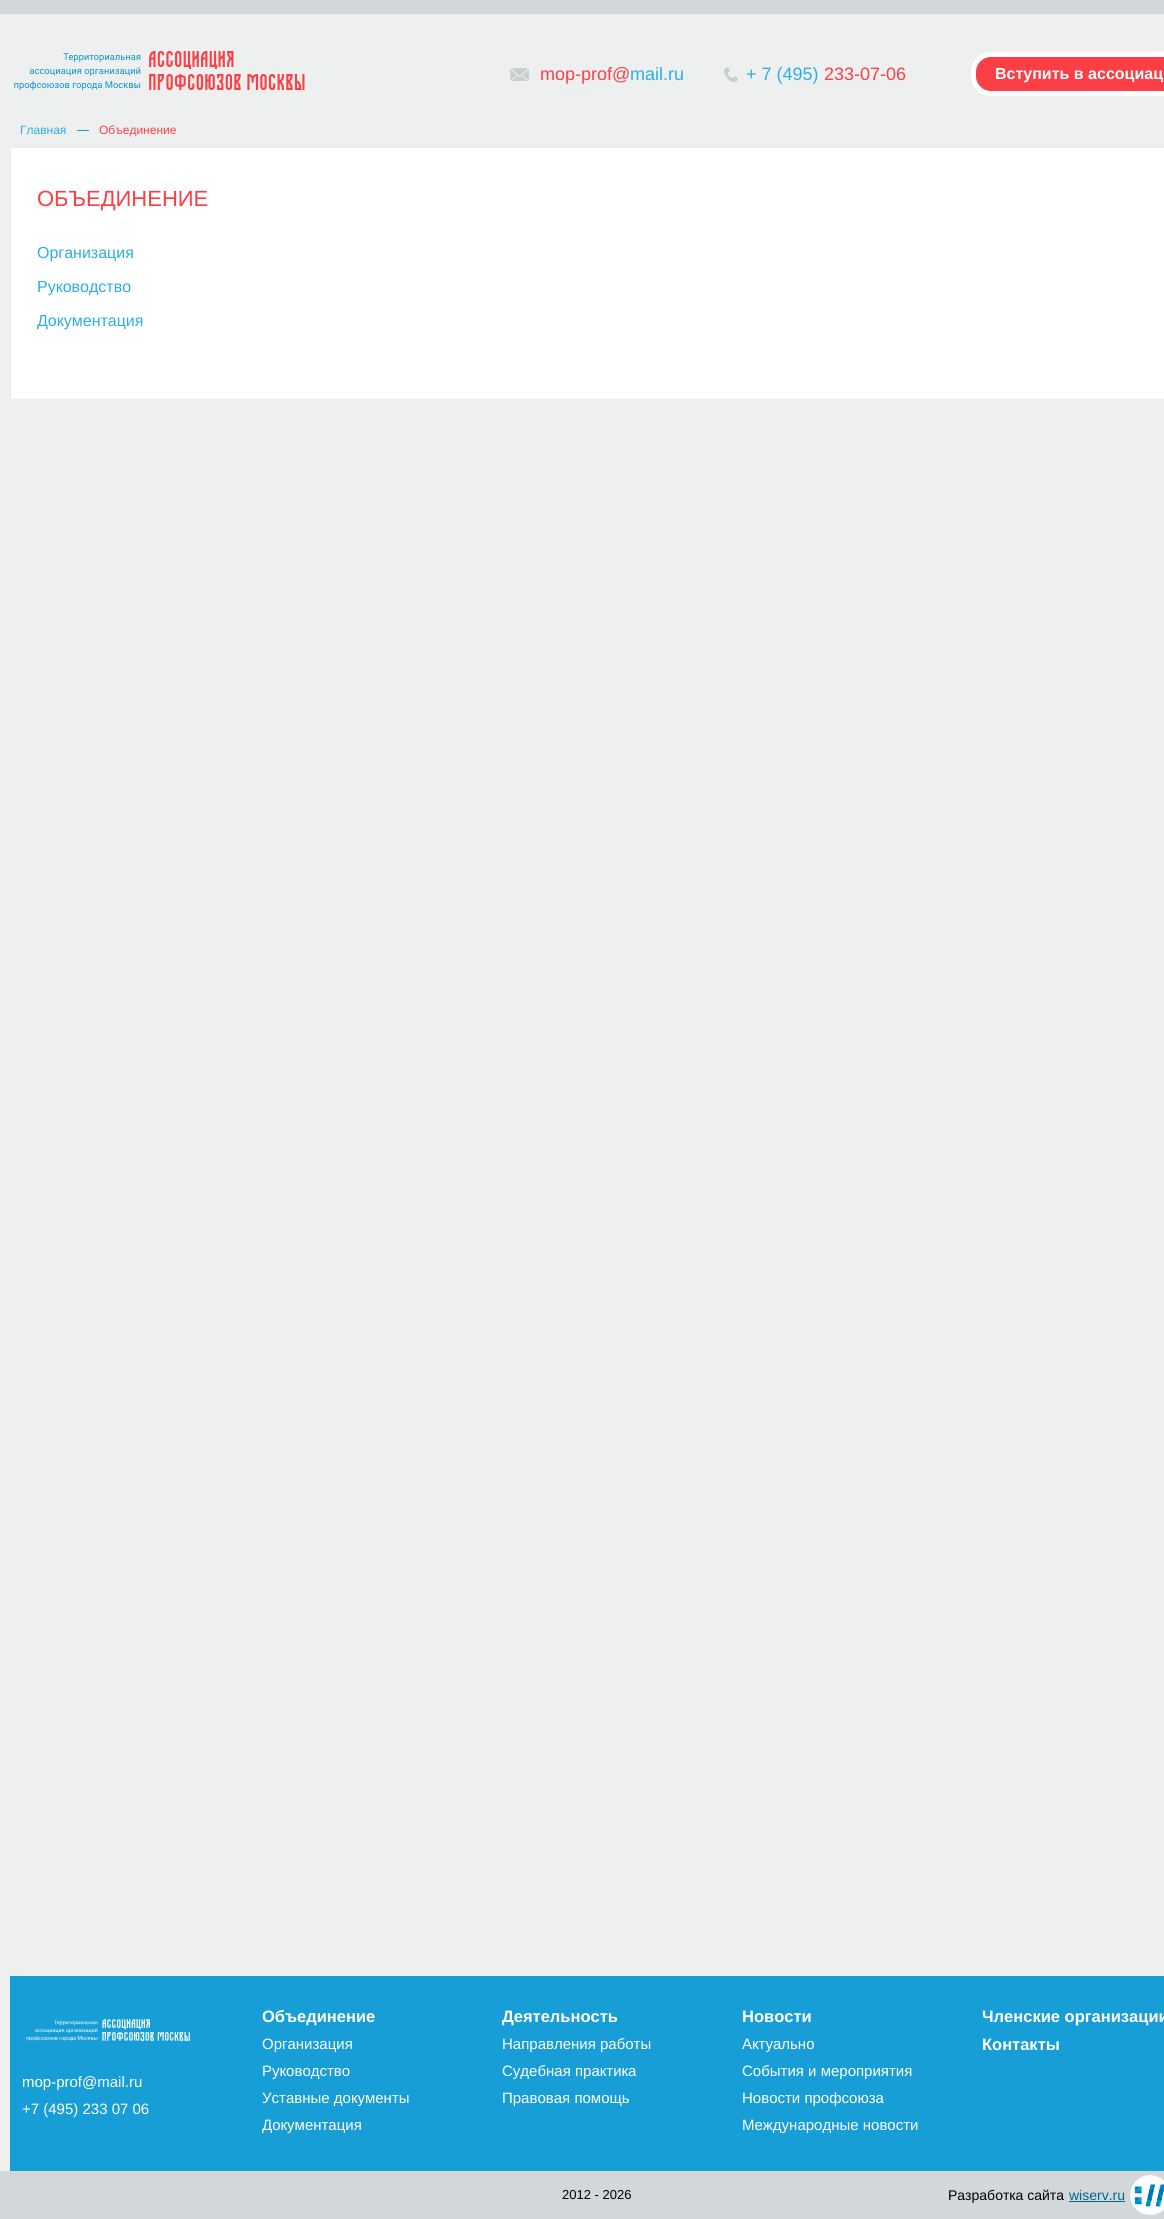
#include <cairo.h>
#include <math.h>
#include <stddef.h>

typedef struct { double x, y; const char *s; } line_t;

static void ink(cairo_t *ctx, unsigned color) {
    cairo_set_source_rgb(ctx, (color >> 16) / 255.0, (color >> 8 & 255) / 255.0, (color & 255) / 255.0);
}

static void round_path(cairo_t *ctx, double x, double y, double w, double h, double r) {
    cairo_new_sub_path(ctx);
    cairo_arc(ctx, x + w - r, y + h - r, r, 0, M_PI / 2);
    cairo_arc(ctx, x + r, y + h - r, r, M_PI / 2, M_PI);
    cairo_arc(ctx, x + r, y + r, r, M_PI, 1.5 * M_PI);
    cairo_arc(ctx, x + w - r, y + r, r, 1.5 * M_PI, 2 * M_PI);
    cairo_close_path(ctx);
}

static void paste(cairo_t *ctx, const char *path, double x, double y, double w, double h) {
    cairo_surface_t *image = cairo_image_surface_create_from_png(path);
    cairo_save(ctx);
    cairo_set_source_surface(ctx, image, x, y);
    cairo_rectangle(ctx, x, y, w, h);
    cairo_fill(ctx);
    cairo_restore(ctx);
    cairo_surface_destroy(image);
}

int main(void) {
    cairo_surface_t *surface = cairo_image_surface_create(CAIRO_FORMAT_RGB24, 1164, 2219);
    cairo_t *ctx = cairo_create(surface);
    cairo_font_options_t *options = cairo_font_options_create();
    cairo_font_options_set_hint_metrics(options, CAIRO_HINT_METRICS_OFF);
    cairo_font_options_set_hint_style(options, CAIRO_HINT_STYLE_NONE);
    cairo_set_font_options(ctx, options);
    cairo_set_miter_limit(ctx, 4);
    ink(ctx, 0xEEF0F0);
    cairo_paint(ctx);
    ink(ctx, 0xD2D7D9);
    cairo_rectangle(ctx, 0, 0, 1164, 14);
    cairo_fill(ctx);
    paste(ctx, "media/1.png", 14, 51, 291, 39);
    paste(ctx, "media/2.png", 510, 68, 19, 13);
    cairo_select_font_face(ctx, "Liberation Sans", CAIRO_FONT_SLANT_NORMAL, CAIRO_FONT_WEIGHT_NORMAL);
    cairo_set_font_size(ctx, 18);
    ink(ctx, 0xFC3E45);
    cairo_move_to(ctx, 540, 80);
    cairo_show_text(ctx, "mop-prof@");
    ink(ctx, 0x2CAEE4);
    cairo_move_to(ctx, 630, 80);
    cairo_show_text(ctx, "mail.ru");
    paste(ctx, "media/3.png", 724, 67, 14, 15);
    cairo_move_to(ctx, 746, 80);
    cairo_show_text(ctx, "+ 7 (495)");
    ink(ctx, 0xFC3E45);
    cairo_move_to(ctx, 824, 80);
    cairo_show_text(ctx, "233-07-06");
    round_path(ctx, 973.5, 54.5, 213, 39, 17.5);
    cairo_fill_preserve(ctx);
    ink(ctx, 0xFFFFFF);
    cairo_set_line_width(ctx, 5);
    cairo_stroke(ctx);
    cairo_select_font_face(ctx, "Liberation Sans", CAIRO_FONT_SLANT_NORMAL, CAIRO_FONT_WEIGHT_BOLD);
    cairo_set_font_size(ctx, 16);
    cairo_move_to(ctx, 995, 79);
    cairo_show_text(ctx, "Вступить в ассоциац");
    cairo_select_font_face(ctx, "Liberation Sans", CAIRO_FONT_SLANT_NORMAL, CAIRO_FONT_WEIGHT_NORMAL);
    cairo_set_font_size(ctx, 12);
    ink(ctx, 0x2CAEE4);
    cairo_move_to(ctx, 20, 134);
    cairo_show_text(ctx, "Главная");
    ink(ctx, 0x179ED6);
    cairo_rectangle(ctx, 77, 130, 12, 1);
    cairo_fill(ctx);
    ink(ctx, 0xFC3E45);
    cairo_move_to(ctx, 99, 134);
    cairo_show_text(ctx, "Объединение");
    ink(ctx, 0xFFFFFF);
    cairo_rectangle(ctx, 10.5, 147.5, 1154, 252);
    cairo_fill_preserve(ctx);
    ink(ctx, 0xECECEC);
    cairo_set_line_width(ctx, 1);
    cairo_stroke(ctx);
    cairo_set_font_size(ctx, 22);
    ink(ctx, 0xFC3E45);
    cairo_move_to(ctx, 37, 206);
    cairo_show_text(ctx, "ОБЪЕДИНЕНИЕ");
    cairo_set_font_size(ctx, 16);
    ink(ctx, 0x2CAEE4);
    {
        static const line_t items[] = {
            {37, 258, "Организация"},
            {37, 292, "Руководство"},
            {37, 326, "Документация"},
        };
        for (size_t i = 0; i < sizeof items / sizeof *items; i++) {
            cairo_move_to(ctx, items[i].x, items[i].y);
            cairo_show_text(ctx, items[i].s);
        }
    }
    ink(ctx, 0x179ED6);
    cairo_rectangle(ctx, 10, 1976, 1154, 195);
    cairo_fill(ctx);
    cairo_select_font_face(ctx, "Liberation Sans", CAIRO_FONT_SLANT_NORMAL, CAIRO_FONT_WEIGHT_BOLD);
    cairo_set_font_size(ctx, 16.5);
    ink(ctx, 0xFFFFFF);
    cairo_move_to(ctx, 262, 2022);
    cairo_show_text(ctx, "Объединение");
    cairo_select_font_face(ctx, "Liberation Sans", CAIRO_FONT_SLANT_NORMAL, CAIRO_FONT_WEIGHT_NORMAL);
    cairo_set_font_size(ctx, 15);
    {
        static const line_t items[] = {
            {262, 2049, "Организация"},
            {262, 2076, "Руководство"},
            {262, 2103, "Уставные документы"},
            {262, 2130, "Документация"},
        };
        for (size_t i = 0; i < sizeof items / sizeof *items; i++) {
            cairo_move_to(ctx, items[i].x, items[i].y);
            cairo_show_text(ctx, items[i].s);
        }
    }
    cairo_select_font_face(ctx, "Liberation Sans", CAIRO_FONT_SLANT_NORMAL, CAIRO_FONT_WEIGHT_BOLD);
    cairo_set_font_size(ctx, 16.5);
    cairo_move_to(ctx, 502, 2022);
    cairo_show_text(ctx, "Деятельность");
    cairo_select_font_face(ctx, "Liberation Sans", CAIRO_FONT_SLANT_NORMAL, CAIRO_FONT_WEIGHT_NORMAL);
    cairo_set_font_size(ctx, 15);
    {
        static const line_t items[] = {
            {502, 2049, "Направления работы"},
            {502, 2076, "Судебная практика"},
            {502, 2103, "Правовая помощь"},
        };
        for (size_t i = 0; i < sizeof items / sizeof *items; i++) {
            cairo_move_to(ctx, items[i].x, items[i].y);
            cairo_show_text(ctx, items[i].s);
        }
    }
    cairo_select_font_face(ctx, "Liberation Sans", CAIRO_FONT_SLANT_NORMAL, CAIRO_FONT_WEIGHT_BOLD);
    cairo_set_font_size(ctx, 16.5);
    cairo_move_to(ctx, 742, 2022);
    cairo_show_text(ctx, "Новости");
    cairo_select_font_face(ctx, "Liberation Sans", CAIRO_FONT_SLANT_NORMAL, CAIRO_FONT_WEIGHT_NORMAL);
    cairo_set_font_size(ctx, 15);
    {
        static const line_t items[] = {
            {742, 2049, "Актуально"},
            {742, 2076, "События и мероприятия"},
            {742, 2103, "Новости профсоюза"},
            {742, 2130, "Международные новости"},
        };
        for (size_t i = 0; i < sizeof items / sizeof *items; i++) {
            cairo_move_to(ctx, items[i].x, items[i].y);
            cairo_show_text(ctx, items[i].s);
        }
    }
    cairo_select_font_face(ctx, "Liberation Sans", CAIRO_FONT_SLANT_NORMAL, CAIRO_FONT_WEIGHT_BOLD);
    cairo_set_font_size(ctx, 16.5);
    cairo_move_to(ctx, 982, 2022);
    cairo_show_text(ctx, "Членские организации");
    cairo_move_to(ctx, 982, 2050);
    cairo_show_text(ctx, "Контакты");
    paste(ctx, "media/4.png", 26, 2019, 164, 22);
    cairo_select_font_face(ctx, "Liberation Sans", CAIRO_FONT_SLANT_NORMAL, CAIRO_FONT_WEIGHT_NORMAL);
    cairo_set_font_size(ctx, 15);
    cairo_move_to(ctx, 22, 2087);
    cairo_show_text(ctx, "mop-prof@mail.ru");
    cairo_move_to(ctx, 22, 2114);
    cairo_show_text(ctx, "+7 (495) 233 07 06");
    ink(ctx, 0xD2D7D9);
    cairo_rectangle(ctx, 0, 2171, 1164, 48);
    cairo_fill(ctx);
    cairo_set_font_size(ctx, 13);
    ink(ctx, 0x000000);
    cairo_move_to(ctx, 562, 2199);
    cairo_show_text(ctx, "2012 - 2026");
    cairo_set_font_size(ctx, 14);
    cairo_move_to(ctx, 948, 2200);
    cairo_show_text(ctx, "Разработка сайта");
    ink(ctx, 0x03648C);
    cairo_move_to(ctx, 1069, 2200);
    cairo_show_text(ctx, "wiserv.ru");
    cairo_rectangle(ctx, 1069, 2201, 56, 1);
    cairo_fill(ctx);
    paste(ctx, "media/5.png", 1130, 2175, 34, 40);
    cairo_surface_write_to_png(surface, "image.png");
    cairo_font_options_destroy(options);
    cairo_destroy(ctx);
    cairo_surface_destroy(surface);
    return 0;
}
